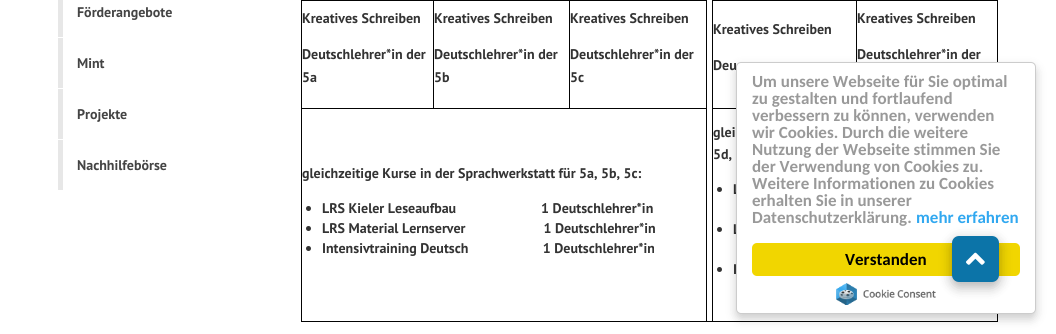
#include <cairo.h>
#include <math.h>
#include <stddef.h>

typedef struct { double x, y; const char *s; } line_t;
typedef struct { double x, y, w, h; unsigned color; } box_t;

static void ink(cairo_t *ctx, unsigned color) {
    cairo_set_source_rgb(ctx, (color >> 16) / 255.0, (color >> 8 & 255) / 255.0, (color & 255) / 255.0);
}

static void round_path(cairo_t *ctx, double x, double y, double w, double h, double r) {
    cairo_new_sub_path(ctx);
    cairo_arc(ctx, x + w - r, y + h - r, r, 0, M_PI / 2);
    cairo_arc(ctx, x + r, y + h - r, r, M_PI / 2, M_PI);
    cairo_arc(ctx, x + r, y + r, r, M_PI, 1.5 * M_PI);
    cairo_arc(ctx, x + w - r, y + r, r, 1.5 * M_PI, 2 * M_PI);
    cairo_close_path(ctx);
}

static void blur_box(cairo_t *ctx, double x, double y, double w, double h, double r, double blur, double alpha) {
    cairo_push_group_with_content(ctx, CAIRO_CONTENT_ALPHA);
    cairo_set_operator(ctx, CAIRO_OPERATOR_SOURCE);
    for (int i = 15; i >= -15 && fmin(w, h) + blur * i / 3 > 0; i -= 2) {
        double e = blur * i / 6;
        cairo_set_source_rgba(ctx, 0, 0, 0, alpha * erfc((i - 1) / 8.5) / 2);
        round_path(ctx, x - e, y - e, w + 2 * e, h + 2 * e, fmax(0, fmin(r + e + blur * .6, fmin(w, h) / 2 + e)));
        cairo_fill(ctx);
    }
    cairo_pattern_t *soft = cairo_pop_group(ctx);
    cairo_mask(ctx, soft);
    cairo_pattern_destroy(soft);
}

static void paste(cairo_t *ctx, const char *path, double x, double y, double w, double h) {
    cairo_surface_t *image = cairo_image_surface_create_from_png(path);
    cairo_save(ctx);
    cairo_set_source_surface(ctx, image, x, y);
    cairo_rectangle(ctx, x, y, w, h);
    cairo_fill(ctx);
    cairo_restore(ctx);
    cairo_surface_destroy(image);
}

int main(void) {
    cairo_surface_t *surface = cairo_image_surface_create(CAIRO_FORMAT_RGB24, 1056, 334);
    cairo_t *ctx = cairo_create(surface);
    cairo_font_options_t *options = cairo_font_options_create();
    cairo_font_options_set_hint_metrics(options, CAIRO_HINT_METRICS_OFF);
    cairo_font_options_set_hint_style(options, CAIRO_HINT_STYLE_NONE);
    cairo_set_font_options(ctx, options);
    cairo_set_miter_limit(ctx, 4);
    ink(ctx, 0xFFFFFF);
    cairo_paint(ctx);
    ink(ctx, 0xE7E7E7);
    cairo_rectangle(ctx, 58, 0, 5, 37);
    cairo_fill(ctx);
    cairo_select_font_face(ctx, "PT Sans", CAIRO_FONT_SLANT_NORMAL, CAIRO_FONT_WEIGHT_BOLD);
    cairo_set_font_size(ctx, 14);
    ink(ctx, 0x444444);
    cairo_move_to(ctx, 77, 17);
    cairo_show_text(ctx, "Förderangebote");
    ink(ctx, 0xE7E7E7);
    cairo_rectangle(ctx, 58, 38, 5, 50);
    cairo_fill(ctx);
    ink(ctx, 0x444444);
    cairo_move_to(ctx, 77, 68);
    cairo_show_text(ctx, "Mint");
    ink(ctx, 0xE7E7E7);
    cairo_rectangle(ctx, 58, 89, 5, 50);
    cairo_fill(ctx);
    ink(ctx, 0x444444);
    cairo_move_to(ctx, 77, 119);
    cairo_show_text(ctx, "Projekte");
    ink(ctx, 0xE7E7E7);
    cairo_rectangle(ctx, 58, 140, 5, 50);
    cairo_fill(ctx);
    ink(ctx, 0x444444);
    cairo_move_to(ctx, 77, 170);
    cairo_show_text(ctx, "Nachhilfebörse");
    {
        static const box_t items[] = {
            {997, 0, 1, 322, 0x030303},
            {301, 321, 697, 1, 0x030303},
            {301, 0, 1, 322, 0x030303},
            {569, 0, 138, 1, 0x030303},
            {301, 108, 406, 1, 0x030303},
            {569, 0, 1, 109, 0x030303},
            {433, 0, 137, 1, 0x030303},
            {433, 0, 1, 109, 0x030303},
            {301, 0, 133, 1, 0x030303},
        };
        for (size_t i = 0; i < sizeof items / sizeof *items; i++) {
            ink(ctx, items[i].color);
            cairo_rectangle(ctx, items[i].x, items[i].y, items[i].w, items[i].h);
            cairo_fill(ctx);
        }
    }
    ink(ctx, 0x333333);
    {
        static const line_t items[] = {
            {302, 23, "Kreatives Schreiben"},
            {302, 59, "Deutschlehrer*in der"},
            {302, 82, "5a"},
            {434, 23, "Kreatives Schreiben"},
            {434, 59, "Deutschlehrer*in der"},
            {434, 82, "5b"},
        };
        for (size_t i = 0; i < sizeof items / sizeof *items; i++) {
            cairo_move_to(ctx, items[i].x, items[i].y);
            cairo_show_text(ctx, items[i].s);
        }
    }
    ink(ctx, 0x030303);
    cairo_rectangle(ctx, 706, 108, 1, 214);
    cairo_fill(ctx);
    cairo_rectangle(ctx, 706, 0, 1, 109);
    cairo_fill(ctx);
    ink(ctx, 0x333333);
    {
        static const line_t items[] = {
            {570, 23, "Kreatives Schreiben"},
            {570, 59, "Deutschlehrer*in der"},
            {570, 82, "5c"},
        };
        for (size_t i = 0; i < sizeof items / sizeof *items; i++) {
            cairo_move_to(ctx, items[i].x, items[i].y);
            cairo_show_text(ctx, items[i].s);
        }
    }
    {
        static const box_t items[] = {
            {856, 0, 142, 1, 0x030303},
            {856, 0, 1, 62, 0x030303},
            {712, 0, 145, 1, 0x030303},
            {712, 108, 24, 1, 0x030303},
            {712, 108, 1, 214, 0x030303},
            {712, 0, 1, 109, 0x030303},
        };
        for (size_t i = 0; i < sizeof items / sizeof *items; i++) {
            ink(ctx, items[i].color);
            cairo_rectangle(ctx, items[i].x, items[i].y, items[i].w, items[i].h);
            cairo_fill(ctx);
        }
    }
    ink(ctx, 0x333333);
    {
        static const line_t items[] = {
            {713, 34, "Kreatives Schreiben"},
            {713, 70, "Deu"},
            {857, 23, "Kreatives Schreiben"},
            {857, 59, "Deutschlehrer*in der"},
            {302, 178, "gleichzeitige Kurse in der Sprachwerkstatt für 5a, 5b, 5c:"},
        };
        for (size_t i = 0; i < sizeof items / sizeof *items; i++) {
            cairo_move_to(ctx, items[i].x, items[i].y);
            cairo_show_text(ctx, items[i].s);
        }
    }
    cairo_new_path(ctx);
    cairo_arc(ctx, 308.5, 208.5, 2.5, 0, 2 * M_PI);
    cairo_fill(ctx);
    cairo_move_to(ctx, 322, 213);
    cairo_show_text(ctx, "LRS Kieler Leseaufbau                        1 Deutschlehrer*in");
    cairo_new_path(ctx);
    cairo_arc(ctx, 308.5, 228.5, 2.5, 0, 2 * M_PI);
    cairo_fill(ctx);
    cairo_move_to(ctx, 322, 233);
    cairo_show_text(ctx, "LRS Material Lernserver                      1 Deutschlehrer*in");
    cairo_new_path(ctx);
    cairo_arc(ctx, 308.5, 248.5, 2.5, 0, 2 * M_PI);
    cairo_fill(ctx);
    {
        static const line_t items[] = {
            {322, 253, "Intensivtraining Deutsch                     1 Deutschlehrer*in"},
            {713, 137, "glei"},
            {713, 159, "5d,"},
        };
        for (size_t i = 0; i < sizeof items / sizeof *items; i++) {
            cairo_move_to(ctx, items[i].x, items[i].y);
            cairo_show_text(ctx, items[i].s);
        }
    }
    cairo_new_path(ctx);
    cairo_arc(ctx, 719.5, 189.5, 2.5, 0, 2 * M_PI);
    cairo_fill(ctx);
    cairo_move_to(ctx, 733, 194);
    cairo_show_text(ctx, "L");
    cairo_new_path(ctx);
    cairo_arc(ctx, 719.5, 229.5, 2.5, 0, 2 * M_PI);
    cairo_fill(ctx);
    cairo_move_to(ctx, 733, 234);
    cairo_show_text(ctx, "L");
    cairo_new_path(ctx);
    cairo_arc(ctx, 719.5, 269.5, 2.5, 0, 2 * M_PI);
    cairo_fill(ctx);
    cairo_move_to(ctx, 733, 274);
    cairo_show_text(ctx, "I");
    ink(ctx, 0x000000);
    blur_box(ctx, 736, 67, 300, 252, 5, 5, 0.2);
    ink(ctx, 0xFFFFFF);
    round_path(ctx, 736.5, 62.5, 299, 251, 4.5);
    cairo_fill_preserve(ctx);
    ink(ctx, 0xCCCCCC);
    cairo_set_line_width(ctx, 1);
    cairo_stroke(ctx);
    ink(ctx, 0xF1D600);
    round_path(ctx, 752, 243, 268, 33, 5);
    cairo_fill(ctx);
    paste(ctx, "media/2.png", 836, 283, 100, 22);
    ink(ctx, 0x000000);
    blur_box(ctx, 952, 240, 47, 46, 7, 7.5, 0.15);
    blur_box(ctx, 952, 241, 47, 46, 7, 5.5, 0.18);
    ink(ctx, 0x0C74A8);
    round_path(ctx, 952, 236, 47, 46, 7);
    cairo_fill(ctx);
    paste(ctx, "media/1.png", 966, 252, 19, 13);
    cairo_select_font_face(ctx, "Carlito", CAIRO_FONT_SLANT_NORMAL, CAIRO_FONT_WEIGHT_BOLD);
    cairo_set_font_size(ctx, 17);
    ink(ctx, 0x999999);
    {
        static const line_t items[] = {
            {752, 87, "Um unsere Webseite für Sie optimal"},
            {752, 104, "zu gestalten und fortlaufend"},
            {752, 121, "verbessern zu können, verwenden"},
            {752, 138, "wir Cookies. Durch die weitere"},
            {752, 155, "Nutzung der Webseite stimmen Sie"},
            {752, 172, "der Verwendung von Cookies zu."},
            {752, 189, "Weitere Informationen zu Cookies"},
            {752, 206, "erhalten Sie in unserer"},
            {752, 223, "Datenschutzerklärung."},
        };
        for (size_t i = 0; i < sizeof items / sizeof *items; i++) {
            cairo_move_to(ctx, items[i].x, items[i].y);
            cairo_show_text(ctx, items[i].s);
        }
    }
    ink(ctx, 0x31A8F0);
    cairo_move_to(ctx, 916, 223);
    cairo_show_text(ctx, "mehr erfahren");
    ink(ctx, 0x000000);
    cairo_move_to(ctx, 845, 265);
    cairo_show_text(ctx, "Verstanden");
    cairo_surface_write_to_png(surface, "image.png");
    cairo_font_options_destroy(options);
    cairo_destroy(ctx);
    cairo_surface_destroy(surface);
    return 0;
}
